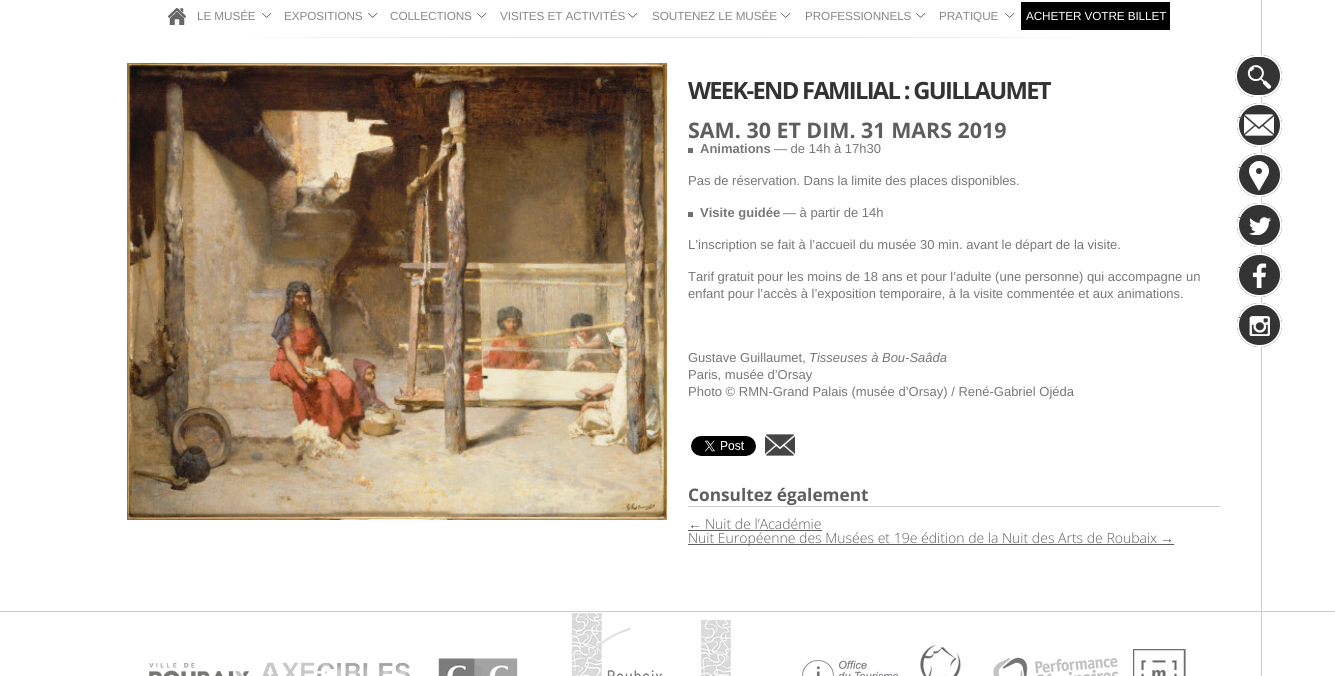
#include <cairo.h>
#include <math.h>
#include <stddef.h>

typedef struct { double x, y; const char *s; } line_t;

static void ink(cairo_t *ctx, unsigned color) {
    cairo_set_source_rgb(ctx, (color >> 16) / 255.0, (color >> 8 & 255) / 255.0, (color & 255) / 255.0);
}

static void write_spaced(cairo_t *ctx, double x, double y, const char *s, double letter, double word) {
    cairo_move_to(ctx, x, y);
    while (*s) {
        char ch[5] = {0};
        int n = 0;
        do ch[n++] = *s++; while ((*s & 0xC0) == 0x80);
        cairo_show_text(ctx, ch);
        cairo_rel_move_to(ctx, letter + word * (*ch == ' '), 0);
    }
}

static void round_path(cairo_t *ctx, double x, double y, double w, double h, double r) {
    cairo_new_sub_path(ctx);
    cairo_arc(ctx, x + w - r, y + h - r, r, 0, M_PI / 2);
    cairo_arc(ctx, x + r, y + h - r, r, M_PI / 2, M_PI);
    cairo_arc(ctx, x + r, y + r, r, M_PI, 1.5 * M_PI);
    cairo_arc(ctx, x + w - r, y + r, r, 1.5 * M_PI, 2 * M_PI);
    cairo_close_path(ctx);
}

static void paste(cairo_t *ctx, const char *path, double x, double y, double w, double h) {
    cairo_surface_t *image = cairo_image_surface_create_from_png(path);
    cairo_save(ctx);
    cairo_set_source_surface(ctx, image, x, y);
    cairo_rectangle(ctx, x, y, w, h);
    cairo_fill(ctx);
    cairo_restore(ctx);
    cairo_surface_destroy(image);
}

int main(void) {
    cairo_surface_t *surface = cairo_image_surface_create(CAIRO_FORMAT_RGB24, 1335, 676);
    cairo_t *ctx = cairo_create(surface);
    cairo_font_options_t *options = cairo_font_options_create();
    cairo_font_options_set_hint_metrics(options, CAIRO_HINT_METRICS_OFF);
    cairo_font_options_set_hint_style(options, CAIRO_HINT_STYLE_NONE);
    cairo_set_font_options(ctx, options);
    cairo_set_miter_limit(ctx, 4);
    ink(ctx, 0xFFFFFF);
    cairo_paint(ctx);
    paste(ctx, "media/1.png", 168, 8, 18, 17);
    paste(ctx, "media/2.png", 262, 13, 10, 5);
    cairo_select_font_face(ctx, "Liberation Sans", CAIRO_FONT_SLANT_NORMAL, CAIRO_FONT_WEIGHT_NORMAL);
    cairo_set_font_size(ctx, 11.75);
    ink(ctx, 0x888888);
    write_spaced(ctx, 197, 20, "LE MUSÉE", -0.1, 0);
    paste(ctx, "media/2.png", 368, 13, 10, 5);
    write_spaced(ctx, 284, 20, "EXPOSITIONS", -0.1, 0);
    paste(ctx, "media/2.png", 477, 13, 10, 5);
    write_spaced(ctx, 390, 20, "COLLECTIONS", -0.1, 0);
    paste(ctx, "media/2.png", 628, 13, 10, 5);
    write_spaced(ctx, 500, 20, "VISITES ET ACTIVITÉS", -0.1, 0);
    paste(ctx, "media/2.png", 781, 13, 10, 5);
    write_spaced(ctx, 652, 20, "SOUTENEZ LE MUSÉE", -0.1, 0);
    paste(ctx, "media/2.png", 916, 13, 10, 5);
    write_spaced(ctx, 805, 20, "PROFESSIONNELS", -0.1, 0);
    paste(ctx, "media/2.png", 1005, 13, 10, 5);
    write_spaced(ctx, 939, 20, "PRATIQUE", -0.1, 0);
    ink(ctx, 0x000000);
    cairo_rectangle(ctx, 1021, 2, 149, 28);
    cairo_fill(ctx);
    ink(ctx, 0xFFFFFF);
    write_spaced(ctx, 1026, 20, "ACHETER VOTRE BILLET", -0.1, 0);
    paste(ctx, "media/3.png", 252, 37, 831, 1);
    ink(ctx, 0xCCCCCC);
    cairo_rectangle(ctx, 0, 611, 1335, 1);
    cairo_fill(ctx);
    cairo_rectangle(ctx, 1261, 0, 1, 676);
    cairo_fill(ctx);
    ink(ctx, 0x333333);
    round_path(ctx, 1235, 55, 47, 42, 21);
    cairo_fill(ctx);
    paste(ctx, "media/4.png", 1247, 65, 25, 24);
    round_path(ctx, 1236, 56, 45, 40, 20);
    ink(ctx, 0xFFFFFF);
    cairo_stroke(ctx);
    ink(ctx, 0x333333);
    round_path(ctx, 1237, 103, 45, 44, 22);
    cairo_fill(ctx);
    paste(ctx, "media/5.png", 1244, 114, 30, 22);
    round_path(ctx, 1238, 104, 43, 42, 21);
    ink(ctx, 0xFFFFFF);
    cairo_stroke(ctx);
    ink(ctx, 0x5E5E5E);
    cairo_rectangle(ctx, 1239, 117, 3, 1);
    cairo_fill(ctx);
    ink(ctx, 0x333333);
    round_path(ctx, 1237, 153, 45, 44, 22);
    cairo_fill(ctx);
    paste(ctx, "media/6.png", 1249, 161, 20, 30);
    round_path(ctx, 1238, 154, 43, 42, 21);
    ink(ctx, 0xFFFFFF);
    cairo_stroke(ctx);
    ink(ctx, 0x5E5E5E);
    cairo_rectangle(ctx, 1239, 167, 3, 1);
    cairo_fill(ctx);
    ink(ctx, 0x333333);
    round_path(ctx, 1237, 203, 45, 44, 22);
    cairo_fill(ctx);
    paste(ctx, "media/7.png", 1249, 217, 22, 18);
    round_path(ctx, 1238, 204, 43, 42, 21);
    ink(ctx, 0xFFFFFF);
    cairo_stroke(ctx);
    ink(ctx, 0x5E5E5E);
    cairo_rectangle(ctx, 1239, 217, 3, 1);
    cairo_fill(ctx);
    ink(ctx, 0x333333);
    round_path(ctx, 1237, 253, 45, 44, 22);
    cairo_fill(ctx);
    paste(ctx, "media/8.png", 1252, 262, 15, 26);
    round_path(ctx, 1238, 254, 43, 42, 21);
    ink(ctx, 0xFFFFFF);
    cairo_stroke(ctx);
    ink(ctx, 0x5E5E5E);
    cairo_rectangle(ctx, 1239, 267, 3, 1);
    cairo_fill(ctx);
    ink(ctx, 0x333333);
    round_path(ctx, 1237, 303, 45, 44, 22);
    cairo_fill(ctx);
    paste(ctx, "media/9.png", 1249, 316, 21, 20);
    round_path(ctx, 1238, 304, 43, 42, 21);
    ink(ctx, 0xFFFFFF);
    cairo_stroke(ctx);
    ink(ctx, 0x5E5E5E);
    cairo_rectangle(ctx, 1239, 317, 3, 1);
    cairo_fill(ctx);
    paste(ctx, "media/10.png", 127, 63, 540, 457);
    cairo_select_font_face(ctx, "Open Sans", CAIRO_FONT_SLANT_NORMAL, CAIRO_FONT_WEIGHT_BOLD);
    cairo_set_font_size(ctx, 23.75);
    ink(ctx, 0x333333);
    write_spaced(ctx, 688, 99, "WEEK-END FAMILIAL : GUILLAUMET", -1.7, 0);
    cairo_set_font_size(ctx, 21.4);
    ink(ctx, 0x5E5E5E);
    cairo_move_to(ctx, 688, 138);
    cairo_show_text(ctx, "SAM. 30 ET DIM. 31 MARS 2019");
    ink(ctx, 0x6E6E6E);
    cairo_rectangle(ctx, 688, 148, 5, 5);
    cairo_fill(ctx);
    cairo_select_font_face(ctx, "Liberation Sans", CAIRO_FONT_SLANT_NORMAL, CAIRO_FONT_WEIGHT_BOLD);
    cairo_set_font_size(ctx, 13);
    ink(ctx, 0x777777);
    cairo_move_to(ctx, 700, 153);
    cairo_show_text(ctx, "Animations");
    cairo_select_font_face(ctx, "Liberation Sans", CAIRO_FONT_SLANT_NORMAL, CAIRO_FONT_WEIGHT_NORMAL);
    cairo_move_to(ctx, 774, 153);
    cairo_show_text(ctx, "— de 14h à 17h30");
    cairo_move_to(ctx, 688, 185);
    cairo_show_text(ctx, "Pas de réservation. Dans la limite des places disponibles.");
    ink(ctx, 0x6E6E6E);
    cairo_rectangle(ctx, 688, 212, 5, 5);
    cairo_fill(ctx);
    cairo_select_font_face(ctx, "Liberation Sans", CAIRO_FONT_SLANT_NORMAL, CAIRO_FONT_WEIGHT_BOLD);
    ink(ctx, 0x777777);
    cairo_move_to(ctx, 700, 217);
    cairo_show_text(ctx, "Visite guidée");
    cairo_select_font_face(ctx, "Liberation Sans", CAIRO_FONT_SLANT_NORMAL, CAIRO_FONT_WEIGHT_NORMAL);
    {
        static const line_t items[] = {
            {783, 217, "— à partir de 14h"},
            {688, 249, "L’inscription se fait à l’accueil du musée 30 min. avant le départ de la visite."},
            {688, 281, "Tarif gratuit pour les moins de 18 ans et pour l’adulte (une personne) qui accompagne un"},
            {688, 298, "enfant pour l’accès à l’exposition temporaire, à la visite commentée et aux animations."},
            {688, 362, "Gustave Guillaumet,"},
        };
        for (size_t i = 0; i < sizeof items / sizeof *items; i++) {
            cairo_move_to(ctx, items[i].x, items[i].y);
            cairo_show_text(ctx, items[i].s);
        }
    }
    cairo_select_font_face(ctx, "Liberation Sans", CAIRO_FONT_SLANT_ITALIC, CAIRO_FONT_WEIGHT_NORMAL);
    cairo_move_to(ctx, 809, 362);
    cairo_show_text(ctx, "Tisseuses à Bou-Saâda");
    cairo_select_font_face(ctx, "Liberation Sans", CAIRO_FONT_SLANT_NORMAL, CAIRO_FONT_WEIGHT_NORMAL);
    cairo_move_to(ctx, 688, 379);
    cairo_show_text(ctx, "Paris, musée d’Orsay");
    cairo_move_to(ctx, 688, 396);
    cairo_show_text(ctx, "Photo © RMN-Grand Palais (musée d’Orsay) / René-Gabriel Ojéda");
    paste(ctx, "media/11.png", 691, 436, 65, 20);
    paste(ctx, "media/12.png", 765, 434, 30, 22);
    ink(ctx, 0xCCCCCC);
    cairo_rectangle(ctx, 688, 506, 532, 1);
    cairo_fill(ctx);
    cairo_select_font_face(ctx, "Open Sans", CAIRO_FONT_SLANT_NORMAL, CAIRO_FONT_WEIGHT_BOLD);
    cairo_set_font_size(ctx, 17.25);
    ink(ctx, 0x5E5E5E);
    cairo_move_to(ctx, 688, 501);
    cairo_show_text(ctx, "Consultez également");
    cairo_select_font_face(ctx, "Liberation Sans", CAIRO_FONT_SLANT_NORMAL, CAIRO_FONT_WEIGHT_NORMAL);
    cairo_set_font_size(ctx, 14);
    cairo_move_to(ctx, 688, 529);
    cairo_show_text(ctx, "←");
    cairo_rectangle(ctx, 688, 530, 134, 1);
    cairo_fill(ctx);
    cairo_select_font_face(ctx, "Open Sans Light", CAIRO_FONT_SLANT_NORMAL, CAIRO_FONT_WEIGHT_NORMAL);
    cairo_move_to(ctx, 705, 529);
    cairo_show_text(ctx, "Nuit de l’Académie");
    cairo_rectangle(ctx, 688, 544, 486, 1);
    cairo_fill(ctx);
    cairo_move_to(ctx, 688, 543);
    cairo_show_text(ctx, "Nuit Européenne des Musées et 19e édition de la Nuit des Arts de Roubaix");
    cairo_select_font_face(ctx, "Liberation Sans", CAIRO_FONT_SLANT_NORMAL, CAIRO_FONT_WEIGHT_NORMAL);
    cairo_move_to(ctx, 1160, 543);
    cairo_show_text(ctx, "→");
    paste(ctx, "media/13.png", 149, 663, 100, 13);
    paste(ctx, "media/14.png", 262, 662, 148, 14);
    paste(ctx, "media/15.png", 438, 658, 80, 18);
    paste(ctx, "media/16.png", 571, 613, 91, 63);
    paste(ctx, "media/17.png", 701, 620, 30, 56);
    paste(ctx, "media/18.png", 802, 660, 96, 16);
    paste(ctx, "media/19.png", 920, 645, 41, 31);
    paste(ctx, "media/20.png", 993, 657, 126, 19);
    paste(ctx, "media/21.png", 1133, 649, 53, 27);
    cairo_surface_write_to_png(surface, "image.png");
    cairo_font_options_destroy(options);
    cairo_destroy(ctx);
    cairo_surface_destroy(surface);
    return 0;
}
